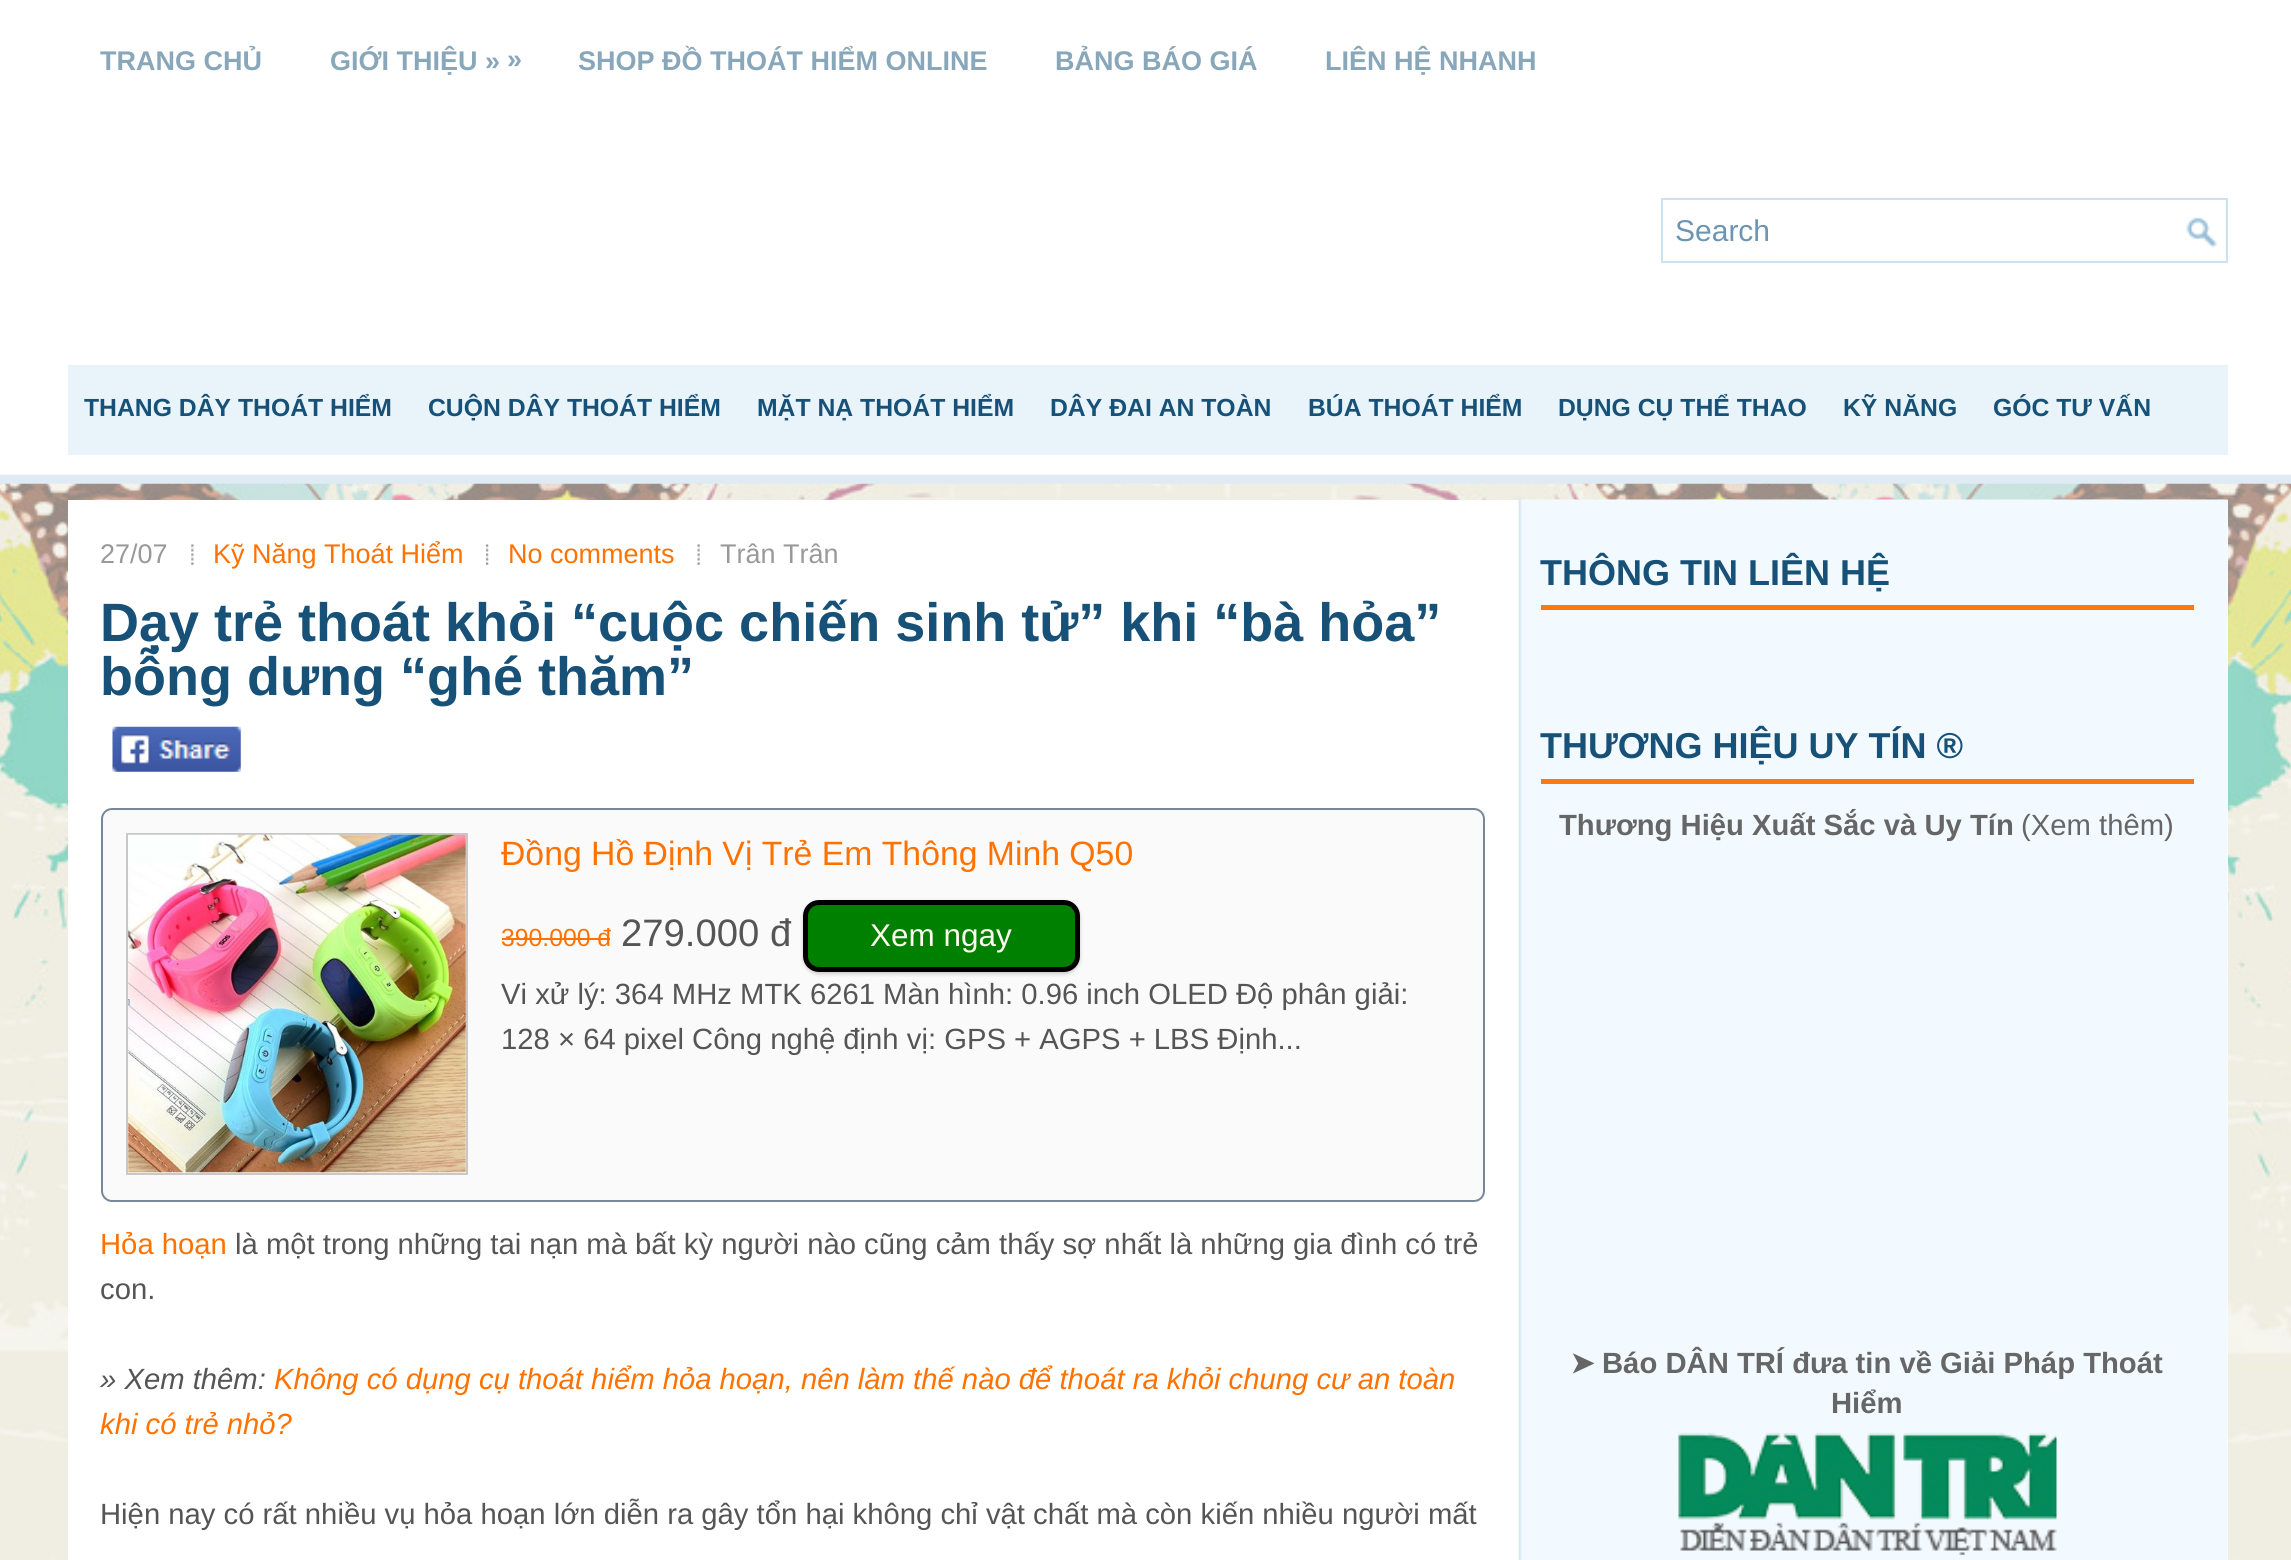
#include <cairo.h>
#include <math.h>
#include <stddef.h>

typedef struct { double x, y; const char *s; } line_t;

static void ink(cairo_t *ctx, unsigned color) {
    cairo_set_source_rgb(ctx, (color >> 16) / 255.0, (color >> 8 & 255) / 255.0, (color & 255) / 255.0);
}

static void round_path(cairo_t *ctx, double x, double y, double w, double h, double r) {
    cairo_new_sub_path(ctx);
    cairo_arc(ctx, x + w - r, y + h - r, r, 0, M_PI / 2);
    cairo_arc(ctx, x + r, y + h - r, r, M_PI / 2, M_PI);
    cairo_arc(ctx, x + r, y + r, r, M_PI, 1.5 * M_PI);
    cairo_arc(ctx, x + w - r, y + r, r, 1.5 * M_PI, 2 * M_PI);
    cairo_close_path(ctx);
}

static void blur_box(cairo_t *ctx, double x, double y, double w, double h, double r, double blur, double alpha) {
    cairo_push_group_with_content(ctx, CAIRO_CONTENT_ALPHA);
    cairo_set_operator(ctx, CAIRO_OPERATOR_SOURCE);
    for (int i = 15; i >= -15 && fmin(w, h) + blur * i / 3 > 0; i -= 2) {
        double e = blur * i / 6;
        cairo_set_source_rgba(ctx, 0, 0, 0, alpha * erfc((i - 1) / 8.5) / 2);
        round_path(ctx, x - e, y - e, w + 2 * e, h + 2 * e, fmax(0, fmin(r + e + blur * .6, fmin(w, h) / 2 + e)));
        cairo_fill(ctx);
    }
    cairo_pattern_t *soft = cairo_pop_group(ctx);
    cairo_mask(ctx, soft);
    cairo_pattern_destroy(soft);
}

static void paste(cairo_t *ctx, const char *path, double x, double y, double w, double h) {
    cairo_surface_t *image = cairo_image_surface_create_from_png(path);
    cairo_save(ctx);
    cairo_set_source_surface(ctx, image, x, y);
    cairo_rectangle(ctx, x, y, w, h);
    cairo_fill(ctx);
    cairo_restore(ctx);
    cairo_surface_destroy(image);
}

int main(void) {
    cairo_surface_t *surface = cairo_image_surface_create(CAIRO_FORMAT_RGB24, 2291, 1560);
    cairo_t *ctx = cairo_create(surface);
    cairo_font_options_t *options = cairo_font_options_create();
    cairo_font_options_set_hint_metrics(options, CAIRO_HINT_METRICS_OFF);
    cairo_font_options_set_hint_style(options, CAIRO_HINT_STYLE_NONE);
    cairo_set_font_options(ctx, options);
    cairo_set_miter_limit(ctx, 4);
    ink(ctx, 0xFFFFFF);
    cairo_paint(ctx);
    paste(ctx, "media/1.png", 0, 474, 2291, 1086);
    cairo_select_font_face(ctx, "Liberation Sans", CAIRO_FONT_SLANT_NORMAL, CAIRO_FONT_WEIGHT_BOLD);
    cairo_set_font_size(ctx, 27);
    ink(ctx, 0x89A7BA);
    {
        static const line_t items[] = {
            {100, 70, "TRANG CHỦ"},
            {330, 70, "GIỚI THIỆU »"},
            {507, 68, "»"},
            {578, 70, "SHOP ĐỒ THOÁT HIỂM ONLINE"},
            {1055, 70, "BẢNG BÁO GIÁ"},
            {1325, 70, "LIÊN HỆ NHANH"},
        };
        for (size_t i = 0; i < sizeof items / sizeof *items; i++) {
            cairo_move_to(ctx, items[i].x, items[i].y);
            cairo_show_text(ctx, items[i].s);
        }
    }
    paste(ctx, "media/2.png", 2186, 217, 31, 31);
    cairo_rectangle(ctx, 1662, 199, 565, 63);
    ink(ctx, 0xCCE2F0);
    cairo_stroke(ctx);
    cairo_select_font_face(ctx, "Liberation Sans", CAIRO_FONT_SLANT_NORMAL, CAIRO_FONT_WEIGHT_NORMAL);
    cairo_set_font_size(ctx, 30);
    ink(ctx, 0x6B95B0);
    cairo_move_to(ctx, 1675, 241);
    cairo_show_text(ctx, "Search");
    ink(ctx, 0xE8F3FA);
    cairo_rectangle(ctx, 68, 365, 2160, 90);
    cairo_fill(ctx);
    cairo_select_font_face(ctx, "Liberation Sans", CAIRO_FONT_SLANT_NORMAL, CAIRO_FONT_WEIGHT_BOLD);
    cairo_set_font_size(ctx, 24.75);
    ink(ctx, 0x175177);
    {
        static const line_t items[] = {
            {84, 416, "THANG DÂY THOÁT HIỂM"},
            {428, 416, "CUỘN DÂY THOÁT HIỂM"},
            {757, 416, "MẶT NẠ THOÁT HIỂM"},
            {1050, 416, "DÂY ĐAI AN TOÀN"},
            {1308, 416, "BÚA THOÁT HIỂM"},
            {1558, 416, "DỤNG CỤ THỂ THAO"},
            {1843, 416, "KỸ NĂNG"},
            {1993, 416, "GÓC TƯ VẤN"},
        };
        for (size_t i = 0; i < sizeof items / sizeof *items; i++) {
            cairo_move_to(ctx, items[i].x, items[i].y);
            cairo_show_text(ctx, items[i].s);
        }
    }
    ink(ctx, 0xFFFFFF);
    cairo_rectangle(ctx, 68, 500, 2160, 1060);
    cairo_fill(ctx);
    paste(ctx, "media/3.png", 1518, 499, 710, 1061);
    cairo_select_font_face(ctx, "Liberation Sans", CAIRO_FONT_SLANT_NORMAL, CAIRO_FONT_WEIGHT_NORMAL);
    cairo_set_font_size(ctx, 27);
    ink(ctx, 0x999999);
    cairo_move_to(ctx, 100, 563);
    cairo_show_text(ctx, "27/07");
    paste(ctx, "media/4.png", 191, 544, 3, 21);
    ink(ctx, 0xFF7200);
    cairo_move_to(ctx, 213, 563);
    cairo_show_text(ctx, "Kỹ Năng Thoát Hiểm");
    paste(ctx, "media/5.png", 486, 544, 3, 21);
    cairo_move_to(ctx, 508, 563);
    cairo_show_text(ctx, "No comments");
    paste(ctx, "media/6.png", 697, 544, 3, 21);
    ink(ctx, 0x999999);
    cairo_move_to(ctx, 720, 563);
    cairo_show_text(ctx, "Trân Trân");
    cairo_select_font_face(ctx, "Liberation Sans", CAIRO_FONT_SLANT_NORMAL, CAIRO_FONT_WEIGHT_BOLD);
    cairo_set_font_size(ctx, 54);
    ink(ctx, 0x175177);
    cairo_move_to(ctx, 100, 641);
    cairo_show_text(ctx, "Dạy trẻ thoát khỏi “cuộc chiến sinh tử” khi “bà hỏa”");
    cairo_move_to(ctx, 100, 695);
    cairo_show_text(ctx, "bỗng dưng “ghé thăm”");
    paste(ctx, "media/7.png", 112, 726, 129, 46);
    ink(ctx, 0xFAFAFA);
    round_path(ctx, 102, 809, 1382, 392, 10);
    cairo_fill_preserve(ctx);
    ink(ctx, 0x778899);
    cairo_stroke(ctx);
    cairo_rectangle(ctx, 127, 834, 340, 340);
    ink(ctx, 0xC8C8C8);
    cairo_stroke(ctx);
    paste(ctx, "media/8.png", 128, 834, 338, 339);
    cairo_select_font_face(ctx, "Liberation Sans", CAIRO_FONT_SLANT_NORMAL, CAIRO_FONT_WEIGHT_NORMAL);
    cairo_set_font_size(ctx, 33.75);
    ink(ctx, 0xFF7200);
    cairo_move_to(ctx, 501, 865);
    cairo_show_text(ctx, "Đồng Hồ Định Vị Trẻ Em Thông Minh Q50");
    cairo_set_font_size(ctx, 24.75);
    cairo_move_to(ctx, 501, 946);
    cairo_show_text(ctx, "390.000 đ");
    cairo_rectangle(ctx, 502, 938, 108, 2);
    cairo_fill(ctx);
    cairo_set_font_size(ctx, 38.25);
    ink(ctx, 0x555555);
    cairo_move_to(ctx, 621, 946);
    cairo_show_text(ctx, "279.000 đ");
    ink(ctx, 0x000000);
    blur_box(ctx, 803, 902, 277, 72, 16, 2, 0.2);
    ink(ctx, 0x008000);
    round_path(ctx, 805.5, 902.5, 272, 67, 13.5);
    cairo_fill_preserve(ctx);
    ink(ctx, 0x000000);
    cairo_set_line_width(ctx, 5);
    cairo_stroke(ctx);
    cairo_set_font_size(ctx, 31.5);
    ink(ctx, 0xFFF9F0);
    cairo_move_to(ctx, 870, 946);
    cairo_show_text(ctx, "Xem ngay");
    cairo_set_font_size(ctx, 29.25);
    ink(ctx, 0x555555);
    cairo_move_to(ctx, 501, 1004);
    cairo_show_text(ctx, "Vi xử lý: 364 MHz MTK 6261 Màn hình: 0.96 inch OLED Độ phân giải:");
    cairo_move_to(ctx, 501, 1049);
    cairo_show_text(ctx, "128 × 64 pixel Công nghệ định vị: GPS + AGPS + LBS Định...");
    ink(ctx, 0xFF7200);
    cairo_move_to(ctx, 100, 1254);
    cairo_show_text(ctx, "Hỏa hoạn");
    ink(ctx, 0x555555);
    cairo_move_to(ctx, 235, 1254);
    cairo_show_text(ctx, "là một trong những tai nạn mà bất kỳ người nào cũng cảm thấy sợ nhất là những gia đình có trẻ");
    cairo_move_to(ctx, 100, 1299);
    cairo_show_text(ctx, "con.");
    cairo_select_font_face(ctx, "Liberation Sans", CAIRO_FONT_SLANT_ITALIC, CAIRO_FONT_WEIGHT_NORMAL);
    cairo_move_to(ctx, 100, 1389);
    cairo_show_text(ctx, "» Xem thêm:");
    ink(ctx, 0xFF7200);
    cairo_move_to(ctx, 274, 1389);
    cairo_show_text(ctx, "Không có dụng cụ thoát hiểm hỏa hoạn, nên làm thế nào để thoát ra khỏi chung cư an toàn");
    cairo_move_to(ctx, 100, 1434);
    cairo_show_text(ctx, "khi có trẻ nhỏ?");
    cairo_select_font_face(ctx, "Liberation Sans", CAIRO_FONT_SLANT_NORMAL, CAIRO_FONT_WEIGHT_NORMAL);
    ink(ctx, 0x555555);
    cairo_move_to(ctx, 100, 1524);
    cairo_show_text(ctx, "Hiện nay có rất nhiều vụ hỏa hoạn lớn diễn ra gây tổn hại không chỉ vật chất mà còn kiến nhiều người mất");
    ink(ctx, 0xFE790D);
    cairo_rectangle(ctx, 1541, 605, 653, 5);
    cairo_fill(ctx);
    cairo_select_font_face(ctx, "Liberation Sans", CAIRO_FONT_SLANT_NORMAL, CAIRO_FONT_WEIGHT_BOLD);
    cairo_set_font_size(ctx, 36);
    ink(ctx, 0x175177);
    cairo_move_to(ctx, 1540, 585);
    cairo_show_text(ctx, "THÔNG TIN LIÊN HỆ");
    ink(ctx, 0xFE790D);
    cairo_rectangle(ctx, 1541, 779, 653, 5);
    cairo_fill(ctx);
    ink(ctx, 0x175177);
    cairo_move_to(ctx, 1540, 758);
    cairo_show_text(ctx, "THƯƠNG HIỆU UY TÍN ®");
    cairo_set_font_size(ctx, 29.25);
    ink(ctx, 0x666666);
    cairo_move_to(ctx, 1559, 835);
    cairo_show_text(ctx, "Thương Hiệu Xuất Sắc và Uy Tín");
    cairo_select_font_face(ctx, "Liberation Sans", CAIRO_FONT_SLANT_NORMAL, CAIRO_FONT_WEIGHT_NORMAL);
    cairo_move_to(ctx, 2021, 835);
    cairo_show_text(ctx, "(Xem thêm)");
    cairo_select_font_face(ctx, "DejaVu Sans", CAIRO_FONT_SLANT_NORMAL, CAIRO_FONT_WEIGHT_BOLD);
    cairo_move_to(ctx, 1570, 1373);
    cairo_show_text(ctx, "➤");
    cairo_select_font_face(ctx, "Liberation Sans", CAIRO_FONT_SLANT_NORMAL, CAIRO_FONT_WEIGHT_BOLD);
    cairo_move_to(ctx, 1602, 1373);
    cairo_show_text(ctx, "Báo DÂN TRÍ đưa tin về Giải Pháp Thoát");
    cairo_move_to(ctx, 1831, 1413);
    cairo_show_text(ctx, "Hiểm");
    paste(ctx, "media/9.png", 1678, 1432, 379, 123);
    cairo_surface_write_to_png(surface, "image.png");
    cairo_font_options_destroy(options);
    cairo_destroy(ctx);
    cairo_surface_destroy(surface);
    return 0;
}
